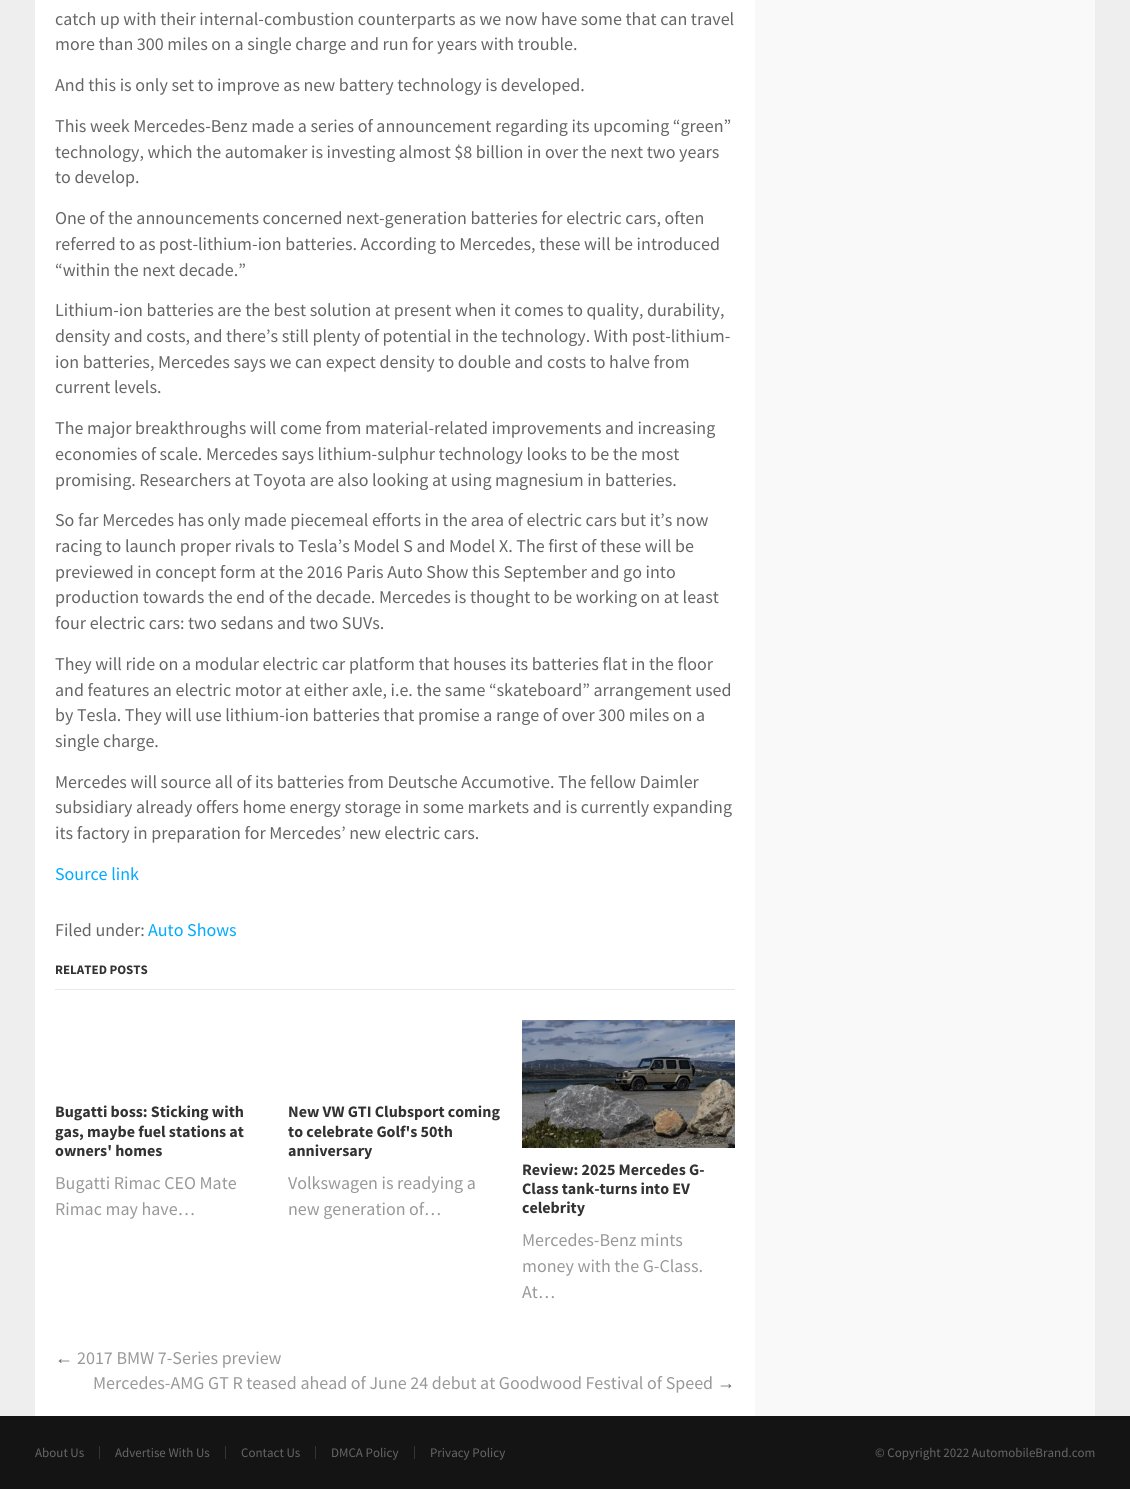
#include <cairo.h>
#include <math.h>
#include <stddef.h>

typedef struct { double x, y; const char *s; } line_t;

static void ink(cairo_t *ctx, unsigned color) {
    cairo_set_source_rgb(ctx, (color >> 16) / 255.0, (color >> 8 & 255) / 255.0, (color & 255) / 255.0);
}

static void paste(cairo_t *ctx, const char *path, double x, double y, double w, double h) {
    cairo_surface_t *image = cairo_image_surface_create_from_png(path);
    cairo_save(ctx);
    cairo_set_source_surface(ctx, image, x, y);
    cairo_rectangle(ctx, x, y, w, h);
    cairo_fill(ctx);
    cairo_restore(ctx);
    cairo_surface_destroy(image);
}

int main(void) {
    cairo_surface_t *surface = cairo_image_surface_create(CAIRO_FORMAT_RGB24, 1130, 1489);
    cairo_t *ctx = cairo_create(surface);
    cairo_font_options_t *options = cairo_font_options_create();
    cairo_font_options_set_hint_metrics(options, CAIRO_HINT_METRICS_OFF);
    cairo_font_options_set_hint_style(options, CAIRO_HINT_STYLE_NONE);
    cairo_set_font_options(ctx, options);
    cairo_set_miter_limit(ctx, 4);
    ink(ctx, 0xEEEEEE);
    cairo_paint(ctx);
    ink(ctx, 0xFFFFFF);
    cairo_rectangle(ctx, 35, 0, 720, 1416);
    cairo_fill(ctx);
    ink(ctx, 0xF9F9F9);
    cairo_rectangle(ctx, 755, 0, 340, 1416);
    cairo_fill(ctx);
    cairo_select_font_face(ctx, "Source Sans Pro", CAIRO_FONT_SLANT_NORMAL, CAIRO_FONT_WEIGHT_NORMAL);
    cairo_set_font_size(ctx, 18);
    ink(ctx, 0x666666);
    {
        static const line_t items[] = {
            {55, 25, "catch up with their internal-combustion counterparts as we now have some that can travel"},
            {55, 50, "more than 300 miles on a single charge and run for years with trouble."},
            {55, 91, "And this is only set to improve as new battery technology is developed."},
            {55, 132, "This week Mercedes-Benz made a series of announcement regarding its upcoming “green”"},
            {55, 158, "technology, which the automaker is investing almost $8 billion in over the next two years"},
            {55, 183, "to develop."},
            {55, 224, "One of the announcements concerned next-generation batteries for electric cars, often"},
            {55, 250, "referred to as post-lithium-ion batteries. According to Mercedes, these will be introduced"},
            {55, 276, "“within the next decade.”"},
            {55, 316, "Lithium-ion batteries are the best solution at present when it comes to quality, durability,"},
            {55, 342, "density and costs, and there’s still plenty of potential in the technology. With post-lithium-"},
            {55, 368, "ion batteries, Mercedes says we can expect density to double and costs to halve from"},
            {55, 393, "current levels."},
            {55, 434, "The major breakthroughs will come from material-related improvements and increasing"},
            {55, 460, "economies of scale. Mercedes says lithium-sulphur technology looks to be the most"},
            {55, 486, "promising. Researchers at Toyota are also looking at using magnesium in batteries."},
            {55, 526, "So far Mercedes has only made piecemeal efforts in the area of electric cars but it’s now"},
            {55, 552, "racing to launch proper rivals to Tesla’s Model S and Model X. The first of these will be"},
            {55, 578, "previewed in concept form at the 2016 Paris Auto Show this September and go into"},
            {55, 603, "production towards the end of the decade. Mercedes is thought to be working on at least"},
            {55, 629, "four electric cars: two sedans and two SUVs."},
            {55, 670, "They will ride on a modular electric car platform that houses its batteries flat in the floor"},
            {55, 696, "and features an electric motor at either axle, i.e. the same “skateboard” arrangement used"},
            {55, 721, "by Tesla. They will use lithium-ion batteries that promise a range of over 300 miles on a"},
            {55, 747, "single charge."},
            {55, 788, "Mercedes will source all of its batteries from Deutsche Accumotive. The fellow Daimler"},
            {55, 813, "subsidiary already offers home energy storage in some markets and is currently expanding"},
            {55, 839, "its factory in preparation for Mercedes’ new electric cars."},
        };
        for (size_t i = 0; i < sizeof items / sizeof *items; i++) {
            cairo_move_to(ctx, items[i].x, items[i].y);
            cairo_show_text(ctx, items[i].s);
        }
    }
    ink(ctx, 0x00AAFF);
    cairo_move_to(ctx, 55, 880);
    cairo_show_text(ctx, "Source link");
    ink(ctx, 0x666666);
    cairo_move_to(ctx, 55, 936);
    cairo_show_text(ctx, "Filed under:");
    ink(ctx, 0x00AAFF);
    cairo_move_to(ctx, 148, 936);
    cairo_show_text(ctx, "Auto Shows");
    ink(ctx, 0xE9E9E9);
    cairo_rectangle(ctx, 55, 989, 680, 1);
    cairo_fill(ctx);
    cairo_select_font_face(ctx, "Source Sans Pro", CAIRO_FONT_SLANT_NORMAL, CAIRO_FONT_WEIGHT_BOLD);
    cairo_set_font_size(ctx, 13);
    ink(ctx, 0x333333);
    cairo_move_to(ctx, 55, 974);
    cairo_show_text(ctx, "RELATED POSTS");
    cairo_set_font_size(ctx, 16);
    {
        static const line_t items[] = {
            {55, 1117, "Bugatti boss: Sticking with"},
            {55, 1137, "gas, maybe fuel stations at"},
            {55, 1156, "owners' homes"},
        };
        for (size_t i = 0; i < sizeof items / sizeof *items; i++) {
            cairo_move_to(ctx, items[i].x, items[i].y);
            cairo_show_text(ctx, items[i].s);
        }
    }
    cairo_select_font_face(ctx, "Source Sans Pro", CAIRO_FONT_SLANT_NORMAL, CAIRO_FONT_WEIGHT_NORMAL);
    cairo_set_font_size(ctx, 18);
    ink(ctx, 0x999999);
    cairo_move_to(ctx, 55, 1189);
    cairo_show_text(ctx, "Bugatti Rimac CEO Mate");
    cairo_move_to(ctx, 55, 1215);
    cairo_show_text(ctx, "Rimac may have…");
    cairo_select_font_face(ctx, "Source Sans Pro", CAIRO_FONT_SLANT_NORMAL, CAIRO_FONT_WEIGHT_BOLD);
    cairo_set_font_size(ctx, 16);
    ink(ctx, 0x333333);
    {
        static const line_t items[] = {
            {288, 1117, "New VW GTI Clubsport coming"},
            {288, 1137, "to celebrate Golf's 50th"},
            {288, 1156, "anniversary"},
        };
        for (size_t i = 0; i < sizeof items / sizeof *items; i++) {
            cairo_move_to(ctx, items[i].x, items[i].y);
            cairo_show_text(ctx, items[i].s);
        }
    }
    cairo_select_font_face(ctx, "Source Sans Pro", CAIRO_FONT_SLANT_NORMAL, CAIRO_FONT_WEIGHT_NORMAL);
    cairo_set_font_size(ctx, 18);
    ink(ctx, 0x999999);
    cairo_move_to(ctx, 288, 1189);
    cairo_show_text(ctx, "Volkswagen is readying a");
    cairo_move_to(ctx, 288, 1215);
    cairo_show_text(ctx, "new generation of…");
    paste(ctx, "media/1.png", 522, 1020, 213, 128);
    cairo_select_font_face(ctx, "Source Sans Pro", CAIRO_FONT_SLANT_NORMAL, CAIRO_FONT_WEIGHT_BOLD);
    cairo_set_font_size(ctx, 16);
    ink(ctx, 0x333333);
    {
        static const line_t items[] = {
            {522, 1175, "Review: 2025 Mercedes G-"},
            {522, 1194, "Class tank-turns into EV"},
            {522, 1213, "celebrity"},
        };
        for (size_t i = 0; i < sizeof items / sizeof *items; i++) {
            cairo_move_to(ctx, items[i].x, items[i].y);
            cairo_show_text(ctx, items[i].s);
        }
    }
    cairo_select_font_face(ctx, "Source Sans Pro", CAIRO_FONT_SLANT_NORMAL, CAIRO_FONT_WEIGHT_NORMAL);
    cairo_set_font_size(ctx, 18);
    ink(ctx, 0x999999);
    {
        static const line_t items[] = {
            {522, 1246, "Mercedes-Benz mints"},
            {522, 1272, "money with the G-Class."},
            {522, 1298, "At…"},
        };
        for (size_t i = 0; i < sizeof items / sizeof *items; i++) {
            cairo_move_to(ctx, items[i].x, items[i].y);
            cairo_show_text(ctx, items[i].s);
        }
    }
    cairo_select_font_face(ctx, "Liberation Sans", CAIRO_FONT_SLANT_NORMAL, CAIRO_FONT_WEIGHT_NORMAL);
    ink(ctx, 0x666666);
    cairo_move_to(ctx, 55, 1364);
    cairo_show_text(ctx, "←");
    cairo_select_font_face(ctx, "Source Sans Pro", CAIRO_FONT_SLANT_NORMAL, CAIRO_FONT_WEIGHT_NORMAL);
    ink(ctx, 0x999999);
    cairo_move_to(ctx, 77, 1364);
    cairo_show_text(ctx, "2017 BMW 7-Series preview");
    cairo_move_to(ctx, 93, 1389);
    cairo_show_text(ctx, "Mercedes-AMG GT R teased ahead of June 24 debut at Goodwood Festival of Speed");
    cairo_select_font_face(ctx, "Liberation Sans", CAIRO_FONT_SLANT_NORMAL, CAIRO_FONT_WEIGHT_NORMAL);
    ink(ctx, 0x666666);
    cairo_move_to(ctx, 717, 1389);
    cairo_show_text(ctx, "→");
    ink(ctx, 0x141414);
    cairo_rectangle(ctx, 0, 1416, 1130, 73);
    cairo_fill(ctx);
    ink(ctx, 0x343434);
    cairo_rectangle(ctx, 99, 1446, 1, 13);
    cairo_fill(ctx);
    cairo_select_font_face(ctx, "Source Sans Pro", CAIRO_FONT_SLANT_NORMAL, CAIRO_FONT_WEIGHT_NORMAL);
    cairo_set_font_size(ctx, 13);
    ink(ctx, 0x666666);
    cairo_move_to(ctx, 35, 1457);
    cairo_show_text(ctx, "About Us");
    ink(ctx, 0x343434);
    cairo_rectangle(ctx, 225, 1446, 1, 13);
    cairo_fill(ctx);
    ink(ctx, 0x666666);
    cairo_move_to(ctx, 115, 1457);
    cairo_show_text(ctx, "Advertise With Us");
    ink(ctx, 0x343434);
    cairo_rectangle(ctx, 315, 1446, 1, 13);
    cairo_fill(ctx);
    ink(ctx, 0x666666);
    cairo_move_to(ctx, 241, 1457);
    cairo_show_text(ctx, "Contact Us");
    ink(ctx, 0x343434);
    cairo_rectangle(ctx, 414, 1446, 1, 13);
    cairo_fill(ctx);
    ink(ctx, 0x666666);
    {
        static const line_t items[] = {
            {331, 1457, "DMCA Policy"},
            {430, 1457, "Privacy Policy"},
            {875, 1457, "© Copyright 2022 AutomobileBrand.com"},
        };
        for (size_t i = 0; i < sizeof items / sizeof *items; i++) {
            cairo_move_to(ctx, items[i].x, items[i].y);
            cairo_show_text(ctx, items[i].s);
        }
    }
    cairo_surface_write_to_png(surface, "image.png");
    cairo_font_options_destroy(options);
    cairo_destroy(ctx);
    cairo_surface_destroy(surface);
    return 0;
}
